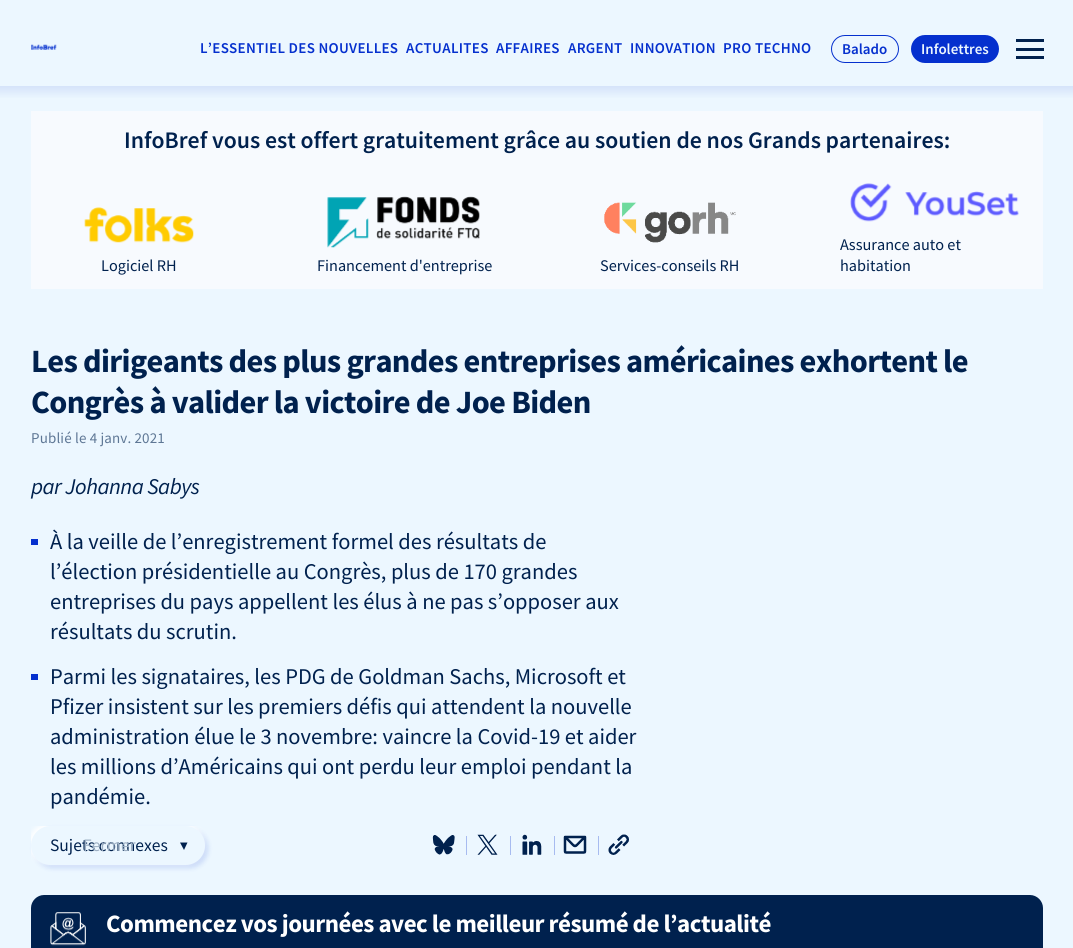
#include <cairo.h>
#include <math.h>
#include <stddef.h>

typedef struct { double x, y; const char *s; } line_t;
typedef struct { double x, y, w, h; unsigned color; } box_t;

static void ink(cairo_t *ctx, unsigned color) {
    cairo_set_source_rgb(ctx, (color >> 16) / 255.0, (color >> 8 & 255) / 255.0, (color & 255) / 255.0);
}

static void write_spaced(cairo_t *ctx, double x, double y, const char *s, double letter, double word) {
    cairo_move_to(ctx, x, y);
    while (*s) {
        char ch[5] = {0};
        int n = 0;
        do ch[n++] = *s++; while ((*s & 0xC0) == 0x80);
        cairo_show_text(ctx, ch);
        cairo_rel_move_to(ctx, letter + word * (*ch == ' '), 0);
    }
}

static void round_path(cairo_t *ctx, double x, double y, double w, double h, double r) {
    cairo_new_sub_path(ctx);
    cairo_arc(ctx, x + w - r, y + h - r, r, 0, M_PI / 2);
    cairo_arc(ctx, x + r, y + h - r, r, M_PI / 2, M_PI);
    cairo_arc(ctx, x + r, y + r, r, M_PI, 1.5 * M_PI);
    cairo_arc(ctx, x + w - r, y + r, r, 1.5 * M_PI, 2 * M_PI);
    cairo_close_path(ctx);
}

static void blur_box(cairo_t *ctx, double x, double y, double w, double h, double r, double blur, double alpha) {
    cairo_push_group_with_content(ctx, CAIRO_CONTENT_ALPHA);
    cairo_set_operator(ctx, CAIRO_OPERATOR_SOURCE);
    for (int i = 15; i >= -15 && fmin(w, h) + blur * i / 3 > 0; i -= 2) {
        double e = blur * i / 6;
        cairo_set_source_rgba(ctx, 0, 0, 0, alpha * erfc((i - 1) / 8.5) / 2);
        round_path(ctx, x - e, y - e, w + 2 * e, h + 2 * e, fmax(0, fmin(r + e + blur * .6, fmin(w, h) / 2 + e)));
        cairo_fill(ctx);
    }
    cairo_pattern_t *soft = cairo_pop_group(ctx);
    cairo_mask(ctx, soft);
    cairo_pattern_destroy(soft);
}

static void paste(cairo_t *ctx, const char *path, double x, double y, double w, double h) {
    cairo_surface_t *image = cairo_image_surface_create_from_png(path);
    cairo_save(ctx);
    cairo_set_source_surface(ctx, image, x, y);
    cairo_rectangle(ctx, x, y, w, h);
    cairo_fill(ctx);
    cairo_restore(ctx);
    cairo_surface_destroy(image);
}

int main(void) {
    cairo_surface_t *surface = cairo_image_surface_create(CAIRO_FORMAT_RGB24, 1073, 948);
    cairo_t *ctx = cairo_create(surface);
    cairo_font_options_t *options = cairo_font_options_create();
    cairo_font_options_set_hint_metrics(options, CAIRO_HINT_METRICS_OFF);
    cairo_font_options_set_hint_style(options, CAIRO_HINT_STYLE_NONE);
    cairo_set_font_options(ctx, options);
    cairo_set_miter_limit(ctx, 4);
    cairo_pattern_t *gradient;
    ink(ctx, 0xECF7FF);
    cairo_paint(ctx);
    paste(ctx, "media/1.png", 31, 44, 26, 6);
    cairo_select_font_face(ctx, "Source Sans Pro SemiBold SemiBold", CAIRO_FONT_SLANT_NORMAL, CAIRO_FONT_WEIGHT_NORMAL);
    cairo_set_font_size(ctx, 15);
    ink(ctx, 0x0530CE);
    {
        static const line_t items[] = {
            {200, 53, "L’ESSENTIEL DES NOUVELLES"},
            {406, 53, "ACTUALITES"},
            {496, 53, "AFFAIRES"},
            {568, 53, "ARGENT"},
            {630, 53, "INNOVATION"},
            {723, 53, "PRO TECHNO"},
        };
        for (size_t i = 0; i < sizeof items / sizeof *items; i++) {
            write_spaced(ctx, items[i].x, items[i].y, items[i].s, 0.3, 0);
        }
    }
    round_path(ctx, 831.5, 35.5, 67, 27, 13.5);
    cairo_set_line_width(ctx, 1);
    cairo_stroke(ctx);
    cairo_move_to(ctx, 842, 54);
    cairo_show_text(ctx, "Balado");
    round_path(ctx, 911, 35, 88, 28, 14);
    cairo_fill(ctx);
    ink(ctx, 0xECF7FF);
    cairo_move_to(ctx, 921, 54);
    cairo_show_text(ctx, "Infolettres");
    {
        static const box_t items[] = {
            {1016, 39, 28, 3, 0x00214E},
            {1016, 48, 28, 3, 0x00214E},
            {1016, 56, 28, 3, 0x00214E},
        };
        for (size_t i = 0; i < sizeof items / sizeof *items; i++) {
            ink(ctx, items[i].color);
            cairo_rectangle(ctx, items[i].x, items[i].y, items[i].w, items[i].h);
            cairo_fill(ctx);
        }
    }
    gradient = cairo_pattern_create_linear(537, 86, 537, 99);
    cairo_pattern_add_color_stop_rgba(gradient, 0, 0.835, 0.89, 0.98, 1);
    cairo_pattern_add_color_stop_rgba(gradient, 1, 0.925, 0.969, 1, 1);
    cairo_set_source(ctx, gradient);
    cairo_pattern_destroy(gradient);
    cairo_rectangle(ctx, 0, 86, 1073, 12);
    cairo_fill(ctx);
    ink(ctx, 0xF7FAFE);
    cairo_rectangle(ctx, 31, 111, 1012, 178);
    cairo_fill(ctx);
    cairo_set_font_size(ctx, 23.75);
    ink(ctx, 0x00214E);
    cairo_move_to(ctx, 124, 148);
    cairo_show_text(ctx, "InfoBref vous est offert gratuitement grâce au soutien de nos Grands partenaires:");
    paste(ctx, "media/2.png", 84, 207, 110, 36);
    cairo_select_font_face(ctx, "Source Sans Pro", CAIRO_FONT_SLANT_NORMAL, CAIRO_FONT_WEIGHT_NORMAL);
    cairo_set_font_size(ctx, 16.25);
    cairo_move_to(ctx, 101, 271);
    cairo_show_text(ctx, "Logiciel RH");
    paste(ctx, "media/3.png", 327, 196, 153, 52);
    cairo_move_to(ctx, 317, 271);
    cairo_show_text(ctx, "Financement d'entreprise");
    paste(ctx, "media/4.png", 604, 202, 132, 41);
    cairo_move_to(ctx, 600, 271);
    cairo_show_text(ctx, "Services-conseils RH");
    paste(ctx, "media/5.png", 850, 183, 169, 39);
    cairo_move_to(ctx, 840, 250);
    cairo_show_text(ctx, "Assurance auto et");
    cairo_move_to(ctx, 840, 271);
    cairo_show_text(ctx, "habitation");
    cairo_select_font_face(ctx, "Source Sans Pro", CAIRO_FONT_SLANT_NORMAL, CAIRO_FONT_WEIGHT_BOLD);
    cairo_set_font_size(ctx, 32.5);
    write_spaced(ctx, 31, 372, "Les dirigeants des plus grandes entreprises américaines exhortent le", -0.65, 0);
    write_spaced(ctx, 31, 413, "Congrès à valider la victoire de Joe Biden", -0.65, 0);
    cairo_select_font_face(ctx, "Source Sans Pro", CAIRO_FONT_SLANT_NORMAL, CAIRO_FONT_WEIGHT_NORMAL);
    cairo_set_font_size(ctx, 15);
    ink(ctx, 0x5E7795);
    write_spaced(ctx, 31, 443, "Publié le 4 janv. 2021", 0.15, 0);
    cairo_select_font_face(ctx, "Source Sans Pro", CAIRO_FONT_SLANT_ITALIC, CAIRO_FONT_WEIGHT_NORMAL);
    cairo_set_font_size(ctx, 22.5);
    ink(ctx, 0x00214E);
    write_spaced(ctx, 31, 494, "par Johanna Sabys", -0.5, 0);
    ink(ctx, 0x0530CE);
    cairo_rectangle(ctx, 31, 539, 7, 6);
    cairo_fill(ctx);
    cairo_select_font_face(ctx, "Source Sans Pro", CAIRO_FONT_SLANT_NORMAL, CAIRO_FONT_WEIGHT_NORMAL);
    ink(ctx, 0x00214E);
    {
        static const line_t items[] = {
            {50, 549, "À la veille de l’enregistrement formel des résultats de"},
            {50, 579, "l’élection présidentielle au Congrès, plus de 170 grandes"},
            {50, 609, "entreprises du pays appellent les élus à ne pas s’opposer aux"},
            {50, 639, "résultats du scrutin."},
        };
        for (size_t i = 0; i < sizeof items / sizeof *items; i++) {
            cairo_move_to(ctx, items[i].x, items[i].y);
            cairo_show_text(ctx, items[i].s);
        }
    }
    ink(ctx, 0x0530CE);
    cairo_rectangle(ctx, 31, 674, 7, 6);
    cairo_fill(ctx);
    ink(ctx, 0x00214E);
    {
        static const line_t items[] = {
            {50, 684, "Parmi les signataires, les PDG de Goldman Sachs, Microsoft et"},
            {50, 714, "Pfizer insistent sur les premiers défis qui attendent la nouvelle"},
            {50, 744, "administration élue le 3 novembre: vaincre la Covid-19 et aider"},
            {50, 774, "les millions d’Américains qui ont perdu leur emploi pendant la"},
            {50, 804, "pandémie."},
        };
        for (size_t i = 0; i < sizeof items / sizeof *items; i++) {
            cairo_move_to(ctx, items[i].x, items[i].y);
            cairo_show_text(ctx, items[i].s);
        }
    }
    ink(ctx, 0x0530CE);
    blur_box(ctx, 34, 829, 174, 39, 19.5, 2.5, 0.15);
    cairo_save(ctx);
    cairo_rectangle(ctx, 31, 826, 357, 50);
    cairo_clip(ctx);
    ink(ctx, 0xFFFFFF);
    blur_box(ctx, 29, 824, 174, 39, 19.5, 2.5, 1);
    cairo_restore(ctx);
    ink(ctx, 0xECF7FF);
    round_path(ctx, 31, 826, 174, 39, 19.5);
    cairo_fill(ctx);
    cairo_set_font_size(ctx, 17.5);
    ink(ctx, 0x00214E);
    cairo_move_to(ctx, 50, 851);
    cairo_show_text(ctx, "Sujets connexes");
    ink(ctx, 0x9EB0C4);
    cairo_move_to(ctx, 83, 851);
    cairo_show_text(ctx, "Fermer");
    ink(ctx, 0x00214E);
    cairo_new_path(ctx);
    cairo_move_to(ctx, 180, 842.5);
    cairo_line_to(ctx, 187.5, 842.5);
    cairo_line_to(ctx, 184, 850);
    cairo_close_path(ctx);
    cairo_fill(ctx);
    paste(ctx, "media/6.png", 432, 835, 23, 20);
    ink(ctx, 0xA7BBF0);
    cairo_rectangle(ctx, 466, 836, 1, 19);
    cairo_fill(ctx);
    paste(ctx, "media/7.png", 477, 834, 21, 21);
    cairo_rectangle(ctx, 510, 836, 1, 19);
    cairo_fill(ctx);
    paste(ctx, "media/8.png", 522, 834, 20, 21);
    cairo_rectangle(ctx, 554, 836, 1, 19);
    cairo_fill(ctx);
    paste(ctx, "media/9.png", 563, 835, 24, 19);
    cairo_rectangle(ctx, 598, 836, 1, 19);
    cairo_fill(ctx);
    paste(ctx, "media/10.png", 608, 834, 21, 21);
    ink(ctx, 0x00214E);
    cairo_new_path(ctx);
    cairo_move_to(ctx, 44, 895);
    cairo_line_to(ctx, 1030, 895);
    cairo_curve_to(ctx, 1037, 895, 1043, 901, 1043, 908);
    cairo_line_to(ctx, 1043, 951);
    cairo_line_to(ctx, 31, 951);
    cairo_line_to(ctx, 31, 908);
    cairo_curve_to(ctx, 31, 901, 37, 895, 44, 895);
    cairo_close_path(ctx);
    cairo_fill(ctx);
    paste(ctx, "media/11.png", 50, 912, 36, 34);
    cairo_select_font_face(ctx, "Source Sans Pro", CAIRO_FONT_SLANT_NORMAL, CAIRO_FONT_WEIGHT_BOLD);
    cairo_set_font_size(ctx, 25);
    ink(ctx, 0xFFFFFF);
    write_spaced(ctx, 106, 932, "Commencez vos journées avec le meilleur résumé de l’actualité", -0.5, 0);
    cairo_surface_write_to_png(surface, "image.png");
    cairo_font_options_destroy(options);
    cairo_destroy(ctx);
    cairo_surface_destroy(surface);
    return 0;
}
